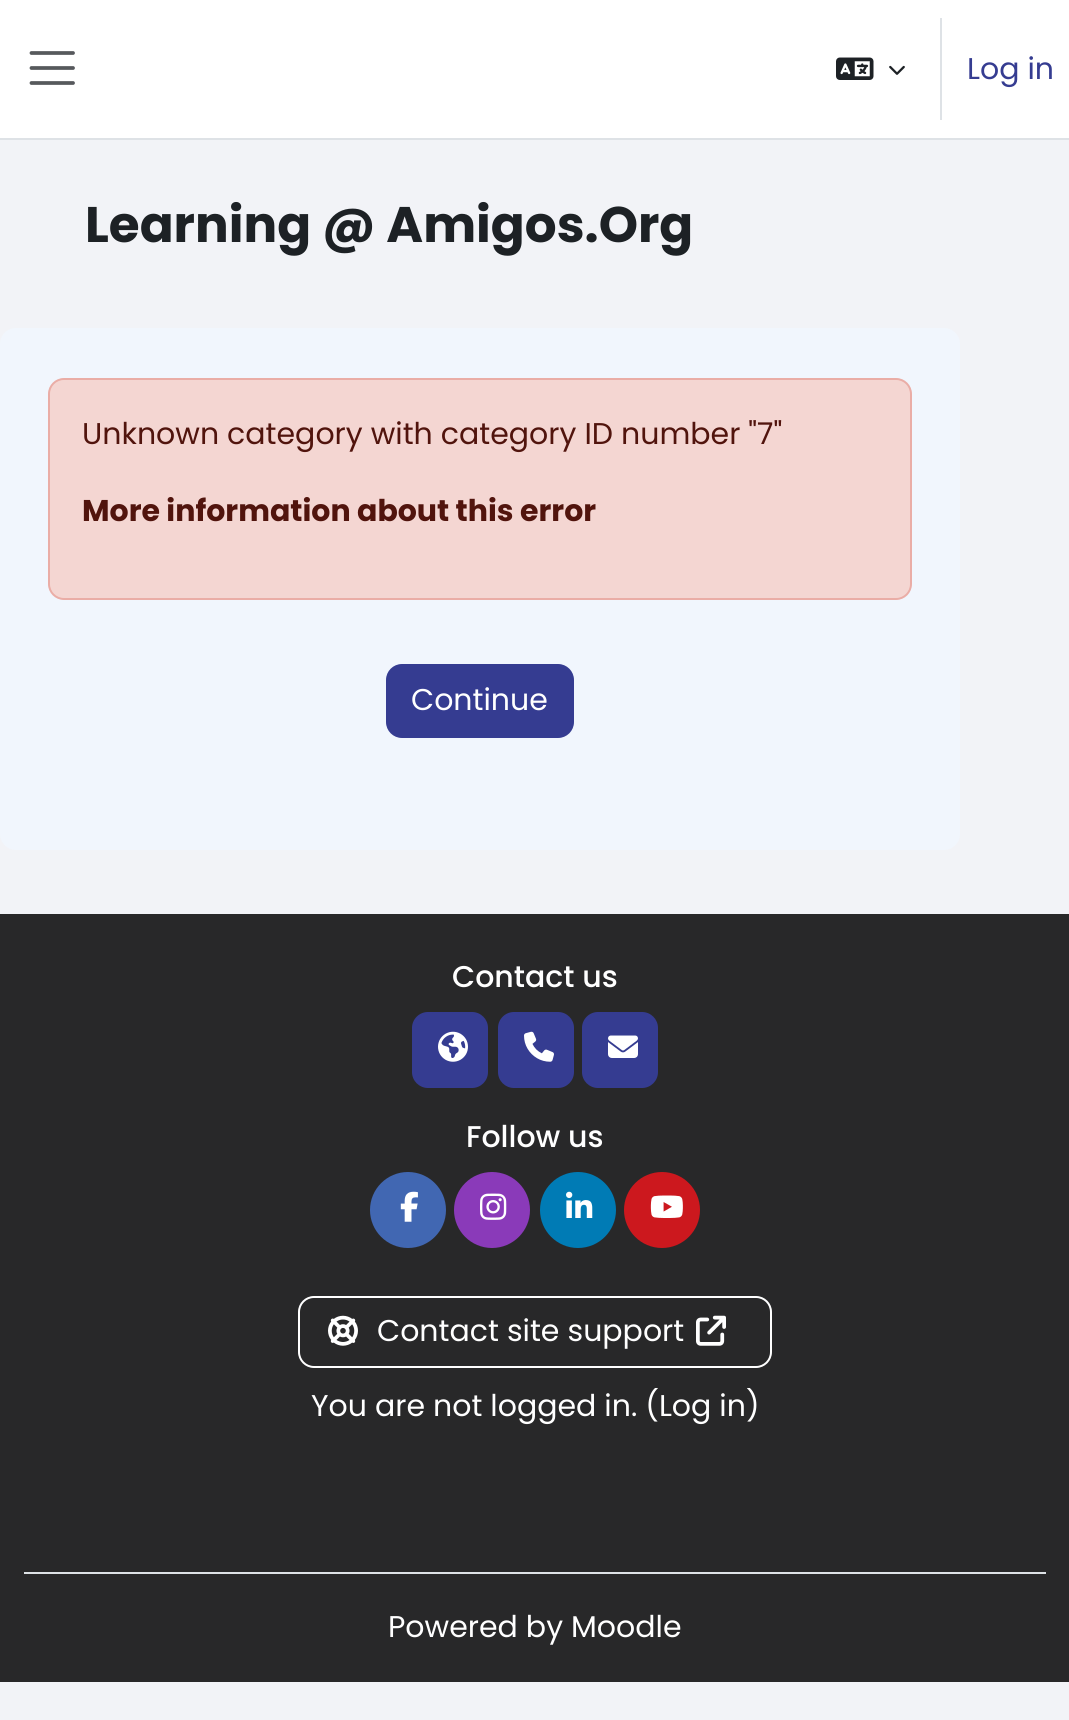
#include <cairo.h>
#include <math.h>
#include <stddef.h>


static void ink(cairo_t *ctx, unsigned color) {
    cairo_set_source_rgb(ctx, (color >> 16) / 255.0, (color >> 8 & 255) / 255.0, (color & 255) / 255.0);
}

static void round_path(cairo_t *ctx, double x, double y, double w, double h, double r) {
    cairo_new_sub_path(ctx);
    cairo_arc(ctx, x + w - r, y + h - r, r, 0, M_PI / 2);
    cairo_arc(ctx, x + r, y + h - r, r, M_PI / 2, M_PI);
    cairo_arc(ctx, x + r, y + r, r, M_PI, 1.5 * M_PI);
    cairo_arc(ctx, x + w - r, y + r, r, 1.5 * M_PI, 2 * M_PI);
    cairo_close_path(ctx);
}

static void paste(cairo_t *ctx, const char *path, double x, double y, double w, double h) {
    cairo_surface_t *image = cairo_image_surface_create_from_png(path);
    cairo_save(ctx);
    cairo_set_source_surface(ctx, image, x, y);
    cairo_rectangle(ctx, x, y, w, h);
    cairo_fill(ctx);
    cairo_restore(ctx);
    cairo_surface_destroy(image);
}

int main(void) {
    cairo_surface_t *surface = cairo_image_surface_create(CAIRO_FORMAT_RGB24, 1069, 1720);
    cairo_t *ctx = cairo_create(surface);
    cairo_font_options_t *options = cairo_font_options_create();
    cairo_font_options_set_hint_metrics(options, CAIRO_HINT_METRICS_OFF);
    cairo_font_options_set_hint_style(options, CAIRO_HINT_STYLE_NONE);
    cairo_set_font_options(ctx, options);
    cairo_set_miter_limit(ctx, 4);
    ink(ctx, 0xF2F3F7);
    cairo_paint(ctx);
    ink(ctx, 0xFFFFFF);
    cairo_rectangle(ctx, 0, 0, 1069, 138);
    cairo_fill(ctx);
    ink(ctx, 0xDEE2E6);
    cairo_rectangle(ctx, 0, 138, 1069, 2);
    cairo_fill(ctx);
    cairo_new_path(ctx);
    cairo_move_to(ctx, 31.5, 53);
    cairo_line_to(ctx, 73, 53);
    cairo_move_to(ctx, 31.5, 68);
    cairo_line_to(ctx, 73, 68);
    cairo_move_to(ctx, 31.5, 83);
    cairo_line_to(ctx, 73, 83);
    ink(ctx, 0x56595C);
    cairo_set_line_width(ctx, 3.8);
    cairo_set_line_cap(ctx, CAIRO_LINE_CAP_ROUND);
    cairo_stroke(ctx);
    paste(ctx, "media/1.png", 836, 57, 38, 23);
    paste(ctx, "media/2.png", 889, 65, 16, 10);
    ink(ctx, 0xDEE2E6);
    cairo_rectangle(ctx, 940, 18, 2, 102);
    cairo_fill(ctx);
    cairo_select_font_face(ctx, "Poppins", CAIRO_FONT_SLANT_NORMAL, CAIRO_FONT_WEIGHT_NORMAL);
    cairo_set_font_size(ctx, 30);
    ink(ctx, 0x353C91);
    cairo_move_to(ctx, 967, 79);
    cairo_show_text(ctx, "Log in");
    cairo_select_font_face(ctx, "Poppins", CAIRO_FONT_SLANT_NORMAL, CAIRO_FONT_WEIGHT_BOLD);
    cairo_set_font_size(ctx, 50);
    ink(ctx, 0x1D2125);
    cairo_move_to(ctx, 85, 242);
    cairo_show_text(ctx, "Learning @ Amigos.Org");
    ink(ctx, 0xF1F6FD);
    round_path(ctx, 0, 328, 960, 522, 16);
    cairo_fill(ctx);
    ink(ctx, 0xF4D6D2);
    round_path(ctx, 49, 379, 862, 220, 15);
    cairo_fill_preserve(ctx);
    ink(ctx, 0xEAADA6);
    cairo_set_line_width(ctx, 2);
    cairo_set_line_cap(ctx, CAIRO_LINE_CAP_BUTT);
    cairo_stroke(ctx);
    cairo_select_font_face(ctx, "Poppins", CAIRO_FONT_SLANT_NORMAL, CAIRO_FONT_WEIGHT_NORMAL);
    cairo_set_font_size(ctx, 30);
    ink(ctx, 0x51140D);
    cairo_move_to(ctx, 82, 444);
    cairo_show_text(ctx, "Unknown category with category ID number \"7\"");
    cairo_select_font_face(ctx, "Poppins", CAIRO_FONT_SLANT_NORMAL, CAIRO_FONT_WEIGHT_BOLD);
    cairo_move_to(ctx, 82, 521);
    cairo_show_text(ctx, "More information about this error");
    ink(ctx, 0x353C91);
    round_path(ctx, 387, 665, 186, 72, 15);
    cairo_fill_preserve(ctx);
    cairo_stroke(ctx);
    cairo_select_font_face(ctx, "Poppins", CAIRO_FONT_SLANT_NORMAL, CAIRO_FONT_WEIGHT_NORMAL);
    ink(ctx, 0xFFFFFF);
    cairo_move_to(ctx, 411, 710);
    cairo_show_text(ctx, "Continue");
    ink(ctx, 0x282829);
    cairo_rectangle(ctx, 0, 914, 1069, 768);
    cairo_fill(ctx);
    cairo_select_font_face(ctx, "Poppins Medium", CAIRO_FONT_SLANT_NORMAL, CAIRO_FONT_WEIGHT_NORMAL);
    ink(ctx, 0xFFFFFF);
    cairo_move_to(ctx, 452, 987);
    cairo_show_text(ctx, "Contact us");
    ink(ctx, 0x353C91);
    round_path(ctx, 412, 1012, 76, 76, 16);
    cairo_fill(ctx);
    paste(ctx, "media/3.png", 438, 1031, 30, 31);
    round_path(ctx, 498, 1012, 76, 76, 16);
    cairo_fill(ctx);
    paste(ctx, "media/4.png", 524, 1031, 30, 31);
    round_path(ctx, 582, 1012, 76, 76, 16);
    cairo_fill(ctx);
    paste(ctx, "media/5.png", 608, 1035, 30, 23);
    ink(ctx, 0xFFFFFF);
    cairo_move_to(ctx, 466, 1147);
    cairo_show_text(ctx, "Follow us");
    ink(ctx, 0x4167B2);
    cairo_new_path(ctx);
    cairo_arc(ctx, 408, 1210, 38, 0, 2 * M_PI);
    cairo_fill(ctx);
    paste(ctx, "media/6.png", 400, 1191, 18, 31);
    ink(ctx, 0x8A3AB9);
    cairo_arc(ctx, 492, 1210, 38, 0, 2 * M_PI);
    cairo_fill(ctx);
    paste(ctx, "media/7.png", 480, 1193, 27, 27);
    ink(ctx, 0x007BB5);
    cairo_arc(ctx, 578, 1210, 38, 0, 2 * M_PI);
    cairo_fill(ctx);
    paste(ctx, "media/8.png", 566, 1191, 27, 27);
    ink(ctx, 0xCC181E);
    cairo_arc(ctx, 662, 1210, 38, 0, 2 * M_PI);
    cairo_fill(ctx);
    paste(ctx, "media/9.png", 650, 1195, 33, 23);
    round_path(ctx, 299, 1297, 472, 70, 15);
    ink(ctx, 0xFFFFFF);
    cairo_stroke(ctx);
    paste(ctx, "media/10.png", 328, 1315, 30, 31);
    cairo_select_font_face(ctx, "Poppins", CAIRO_FONT_SLANT_NORMAL, CAIRO_FONT_WEIGHT_NORMAL);
    cairo_move_to(ctx, 377, 1341);
    cairo_show_text(ctx, "Contact site support");
    paste(ctx, "media/11.png", 696, 1315, 30, 31);
    cairo_move_to(ctx, 311, 1416);
    cairo_show_text(ctx, "You are not logged in. (Log in)");
    ink(ctx, 0xDEE2E6);
    cairo_rectangle(ctx, 24, 1572, 1022, 2);
    cairo_fill(ctx);
    ink(ctx, 0xFFFFFF);
    cairo_move_to(ctx, 388, 1637);
    cairo_show_text(ctx, "Powered by Moodle");
    cairo_surface_write_to_png(surface, "image.png");
    cairo_font_options_destroy(options);
    cairo_destroy(ctx);
    cairo_surface_destroy(surface);
    return 0;
}
